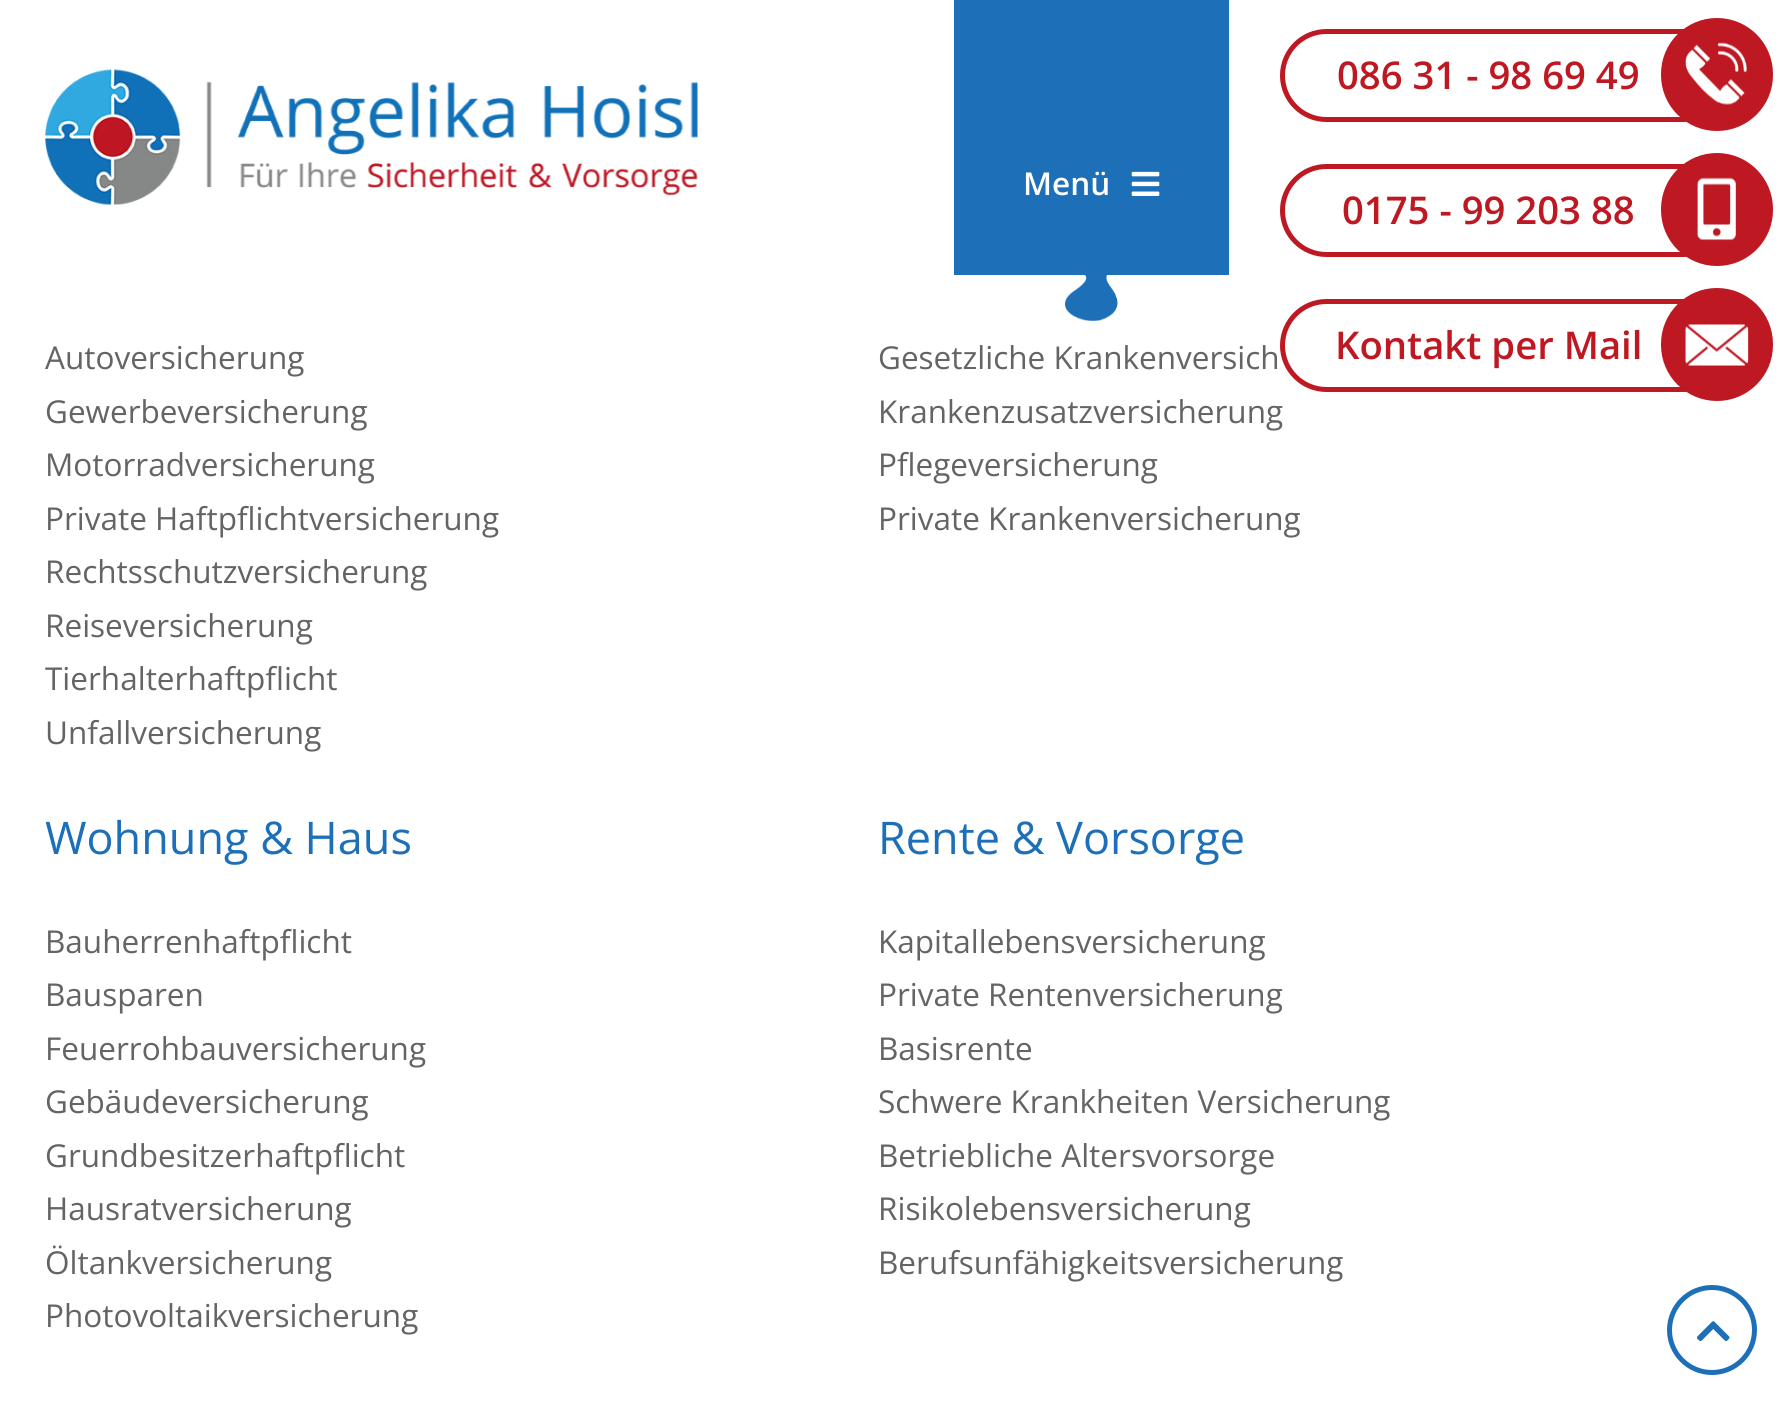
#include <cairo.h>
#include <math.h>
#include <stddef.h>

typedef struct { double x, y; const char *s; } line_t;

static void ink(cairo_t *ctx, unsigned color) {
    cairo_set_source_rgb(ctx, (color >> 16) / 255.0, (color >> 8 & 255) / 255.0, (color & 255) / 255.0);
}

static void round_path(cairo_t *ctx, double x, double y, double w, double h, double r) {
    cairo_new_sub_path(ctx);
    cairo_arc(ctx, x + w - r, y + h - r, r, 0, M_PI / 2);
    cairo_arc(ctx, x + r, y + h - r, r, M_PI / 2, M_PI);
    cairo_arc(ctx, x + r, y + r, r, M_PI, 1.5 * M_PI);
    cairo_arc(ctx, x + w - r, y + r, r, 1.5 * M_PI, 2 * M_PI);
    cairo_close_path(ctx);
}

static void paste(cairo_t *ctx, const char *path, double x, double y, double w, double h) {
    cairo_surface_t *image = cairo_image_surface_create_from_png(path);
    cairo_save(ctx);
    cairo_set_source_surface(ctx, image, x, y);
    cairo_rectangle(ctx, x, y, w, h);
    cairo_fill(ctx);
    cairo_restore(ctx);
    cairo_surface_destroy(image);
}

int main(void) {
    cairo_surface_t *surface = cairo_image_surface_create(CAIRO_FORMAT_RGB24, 1789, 1407);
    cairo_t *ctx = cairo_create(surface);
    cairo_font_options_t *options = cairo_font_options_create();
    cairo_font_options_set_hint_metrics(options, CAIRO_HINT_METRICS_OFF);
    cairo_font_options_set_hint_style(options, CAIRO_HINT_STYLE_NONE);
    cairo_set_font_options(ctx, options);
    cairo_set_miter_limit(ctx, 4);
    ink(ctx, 0xFFFFFF);
    cairo_paint(ctx);
    paste(ctx, "media/1.png", 45, 69, 653, 136);
    ink(ctx, 0x1D6FB8);
    cairo_rectangle(ctx, 954, 0, 275, 275);
    cairo_fill(ctx);
    cairo_select_font_face(ctx, "Open Sans SemiBold", CAIRO_FONT_SLANT_NORMAL, CAIRO_FONT_WEIGHT_NORMAL);
    cairo_set_font_size(ctx, 31.5);
    ink(ctx, 0xFFFFFF);
    cairo_move_to(ctx, 1023, 195);
    cairo_show_text(ctx, "Menü");
    paste(ctx, "media/2.png", 1131, 171, 29, 25);
    paste(ctx, "media/3.png", 1065, 275, 53, 47);
    round_path(ctx, 1282.5, 31.5, 445, 88, 44);
    ink(ctx, 0xBE1822);
    cairo_set_line_width(ctx, 5);
    cairo_stroke(ctx);
    cairo_set_font_size(ctx, 38.25);
    cairo_move_to(ctx, 1337, 89);
    cairo_show_text(ctx, "086 31 - 98 69 49");
    round_path(ctx, 1661, 18, 112, 113, 56);
    cairo_fill(ctx);
    paste(ctx, "media/4.png", 1685, 42, 62, 63);
    round_path(ctx, 1282.5, 166.5, 445, 88, 44);
    cairo_stroke(ctx);
    cairo_move_to(ctx, 1342, 224);
    cairo_show_text(ctx, "0175 - 99 203 88");
    round_path(ctx, 1661, 153, 112, 113, 56);
    cairo_fill(ctx);
    paste(ctx, "media/5.png", 1697, 177, 39, 64);
    round_path(ctx, 1282.5, 301.5, 445, 88, 44);
    cairo_stroke(ctx);
    cairo_move_to(ctx, 1335, 359);
    cairo_show_text(ctx, "Kontakt per Mail");
    round_path(ctx, 1661, 288, 112, 113, 56);
    cairo_fill(ctx);
    paste(ctx, "media/6.png", 1685, 324, 64, 42);
    cairo_select_font_face(ctx, "Open Sans", CAIRO_FONT_SLANT_NORMAL, CAIRO_FONT_WEIGHT_NORMAL);
    cairo_set_font_size(ctx, 31.5);
    ink(ctx, 0x646464);
    {
        static const line_t items[] = {
            {45, 369, "Autoversicherung"},
            {45, 423, "Gewerbeversicherung"},
            {45, 476, "Motorradversicherung"},
            {45, 530, "Private Haftpflichtversicherung"},
            {45, 583, "Rechtsschutzversicherung"},
            {45, 637, "Reiseversicherung"},
            {45, 690, "Tierhalterhaftpflicht"},
            {45, 744, "Unfallversicherung"},
            {878, 369, "Gesetzliche Krankenversich"},
            {878, 423, "Krankenzusatzversicherung"},
            {878, 476, "Pflegeversicherung"},
            {878, 530, "Private Krankenversicherung"},
        };
        for (size_t i = 0; i < sizeof items / sizeof *items; i++) {
            cairo_move_to(ctx, items[i].x, items[i].y);
            cairo_show_text(ctx, items[i].s);
        }
    }
    cairo_set_font_size(ctx, 45);
    ink(ctx, 0x1D6FB8);
    cairo_move_to(ctx, 45, 854);
    cairo_show_text(ctx, "Wohnung & Haus");
    cairo_set_font_size(ctx, 31.5);
    ink(ctx, 0x646464);
    {
        static const line_t items[] = {
            {45, 953, "Bauherrenhaftpflicht"},
            {45, 1006, "Bausparen"},
            {45, 1060, "Feuerrohbauversicherung"},
            {45, 1113, "Gebäudeversicherung"},
            {45, 1167, "Grundbesitzerhaftpflicht"},
            {45, 1220, "Hausratversicherung"},
            {45, 1274, "Öltankversicherung"},
            {45, 1327, "Photovoltaikversicherung"},
        };
        for (size_t i = 0; i < sizeof items / sizeof *items; i++) {
            cairo_move_to(ctx, items[i].x, items[i].y);
            cairo_show_text(ctx, items[i].s);
        }
    }
    cairo_set_font_size(ctx, 45);
    ink(ctx, 0x1D6FB8);
    cairo_move_to(ctx, 878, 854);
    cairo_show_text(ctx, "Rente & Vorsorge");
    cairo_set_font_size(ctx, 31.5);
    ink(ctx, 0x646464);
    {
        static const line_t items[] = {
            {878, 953, "Kapitallebensversicherung"},
            {878, 1006, "Private Rentenversicherung"},
            {878, 1060, "Basisrente"},
            {878, 1113, "Schwere Krankheiten Versicherung"},
            {878, 1167, "Betriebliche Altersvorsorge"},
            {878, 1220, "Risikolebensversicherung"},
            {878, 1274, "Berufsunfähigkeitsversicherung"},
        };
        for (size_t i = 0; i < sizeof items / sizeof *items; i++) {
            cairo_move_to(ctx, items[i].x, items[i].y);
            cairo_show_text(ctx, items[i].s);
        }
    }
    cairo_new_path(ctx);
    cairo_arc(ctx, 1712, 1330, 42.5, 0, 2 * M_PI);
    ink(ctx, 0x1D6FB8);
    cairo_stroke(ctx);
    paste(ctx, "media/7.png", 1697, 1321, 33, 20);
    cairo_surface_write_to_png(surface, "image.png");
    cairo_font_options_destroy(options);
    cairo_destroy(ctx);
    cairo_surface_destroy(surface);
    return 0;
}
